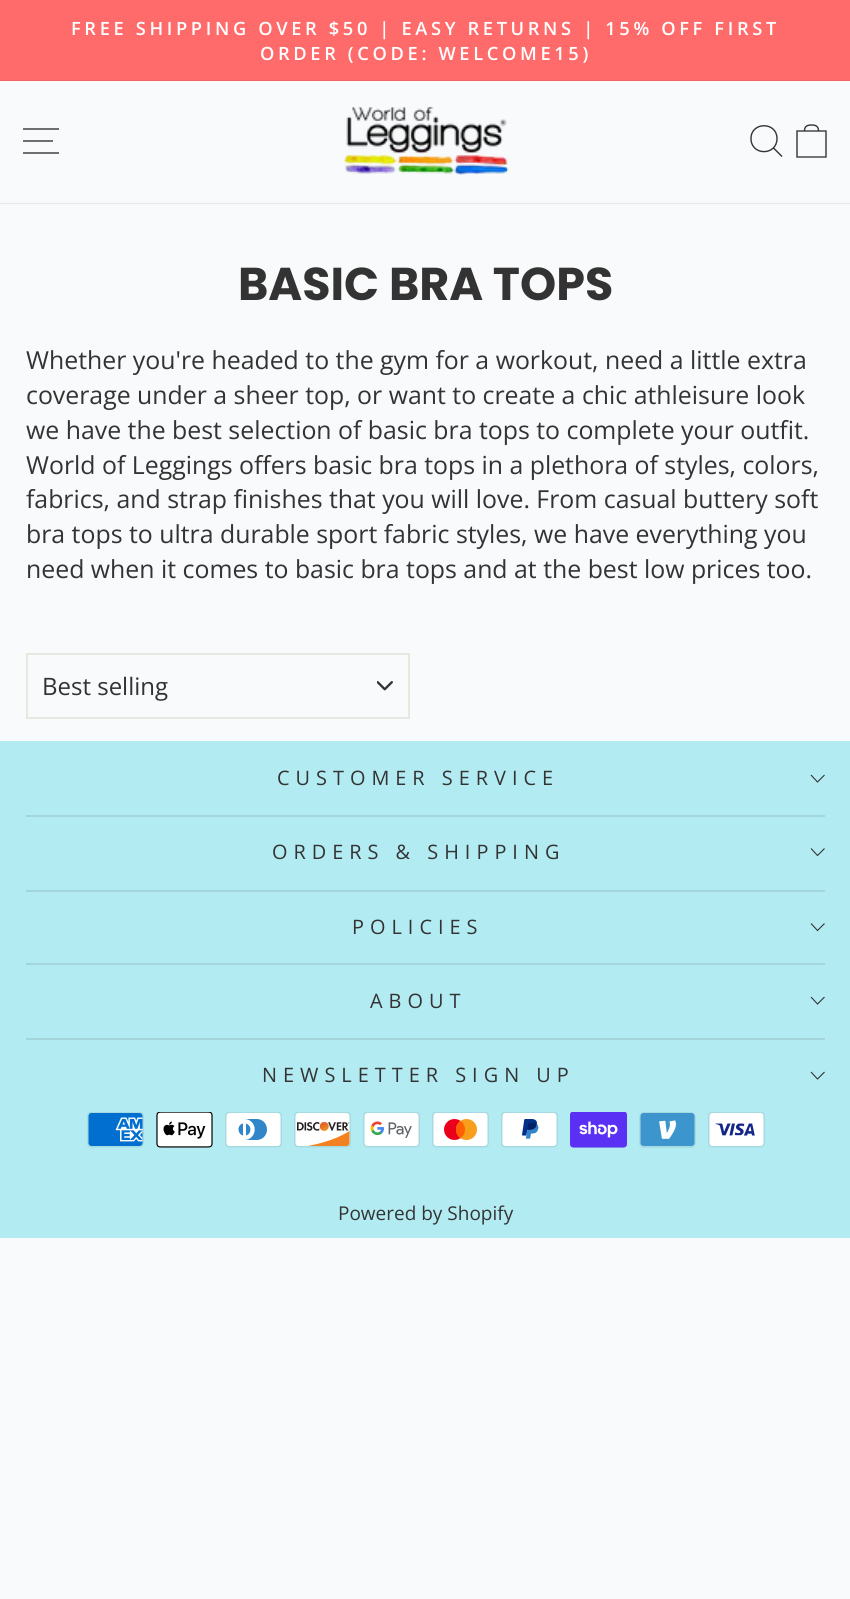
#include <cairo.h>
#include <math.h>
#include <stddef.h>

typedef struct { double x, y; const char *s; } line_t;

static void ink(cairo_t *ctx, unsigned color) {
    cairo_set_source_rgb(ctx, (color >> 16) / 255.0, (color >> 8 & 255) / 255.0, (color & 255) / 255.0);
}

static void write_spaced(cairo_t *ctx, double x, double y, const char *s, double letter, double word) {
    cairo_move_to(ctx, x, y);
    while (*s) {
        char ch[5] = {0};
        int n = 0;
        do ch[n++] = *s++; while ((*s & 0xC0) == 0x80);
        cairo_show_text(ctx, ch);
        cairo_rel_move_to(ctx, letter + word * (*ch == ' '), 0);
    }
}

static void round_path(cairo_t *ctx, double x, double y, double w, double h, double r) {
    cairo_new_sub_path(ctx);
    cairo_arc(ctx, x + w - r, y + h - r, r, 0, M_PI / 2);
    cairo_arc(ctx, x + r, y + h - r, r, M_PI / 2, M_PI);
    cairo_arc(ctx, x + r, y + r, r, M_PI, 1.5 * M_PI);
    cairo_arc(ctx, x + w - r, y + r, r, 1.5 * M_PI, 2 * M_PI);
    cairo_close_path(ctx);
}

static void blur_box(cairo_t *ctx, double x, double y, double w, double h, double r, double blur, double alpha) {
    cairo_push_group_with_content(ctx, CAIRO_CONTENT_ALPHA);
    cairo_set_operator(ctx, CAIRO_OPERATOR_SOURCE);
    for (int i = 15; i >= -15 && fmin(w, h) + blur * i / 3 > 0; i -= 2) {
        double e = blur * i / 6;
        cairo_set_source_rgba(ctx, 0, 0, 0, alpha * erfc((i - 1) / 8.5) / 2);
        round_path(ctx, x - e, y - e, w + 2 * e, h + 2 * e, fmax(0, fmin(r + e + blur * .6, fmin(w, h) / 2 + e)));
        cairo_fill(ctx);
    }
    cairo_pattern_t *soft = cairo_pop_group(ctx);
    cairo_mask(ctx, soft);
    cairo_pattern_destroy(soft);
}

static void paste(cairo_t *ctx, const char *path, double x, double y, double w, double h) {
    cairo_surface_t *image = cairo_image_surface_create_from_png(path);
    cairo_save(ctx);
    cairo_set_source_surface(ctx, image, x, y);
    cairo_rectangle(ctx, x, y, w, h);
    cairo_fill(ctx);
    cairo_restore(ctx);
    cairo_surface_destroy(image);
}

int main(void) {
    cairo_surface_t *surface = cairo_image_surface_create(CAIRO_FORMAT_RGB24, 850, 1599);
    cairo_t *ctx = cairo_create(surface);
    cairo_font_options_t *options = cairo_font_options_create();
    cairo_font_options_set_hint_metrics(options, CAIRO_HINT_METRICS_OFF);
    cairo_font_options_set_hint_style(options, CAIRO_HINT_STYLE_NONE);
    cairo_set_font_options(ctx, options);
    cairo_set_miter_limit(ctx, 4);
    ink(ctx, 0xF9FAFB);
    cairo_paint(ctx);
    ink(ctx, 0xFF6B6B);
    cairo_rectangle(ctx, 0, 0, 850, 81);
    cairo_fill(ctx);
    cairo_select_font_face(ctx, "Open Sans SemiBold", CAIRO_FONT_SLANT_NORMAL, CAIRO_FONT_WEIGHT_NORMAL);
    cairo_set_font_size(ctx, 18.25);
    ink(ctx, 0xFFFFFF);
    write_spaced(ctx, 71, 35, "FREE SHIPPING OVER $50 | EASY RETURNS | 15% OFF FIRST", 3.65, 0);
    write_spaced(ctx, 260, 60, "ORDER (CODE: WELCOME15)", 3.65, 0);
    ink(ctx, 0x000000);
    blur_box(ctx, 0, 81, 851, 122, 0, 1, 0.2);
    ink(ctx, 0xF9FAFB);
    cairo_rectangle(ctx, 0, 81, 850, 122);
    cairo_fill(ctx);
    cairo_new_path(ctx);
    cairo_move_to(ctx, 23, 129);
    cairo_line_to(ctx, 59, 129);
    cairo_move_to(ctx, 23, 141);
    cairo_line_to(ctx, 53, 141);
    cairo_move_to(ctx, 23, 153);
    cairo_line_to(ctx, 59, 153);
    ink(ctx, 0x333333);
    cairo_set_line_width(ctx, 1.4);
    cairo_stroke(ctx);
    paste(ctx, "media/1.png", 343, 106, 166, 69);
    cairo_new_path(ctx);
    cairo_move_to(ctx, 777, 138.5);
    cairo_curve_to(ctx, 777, 156, 751, 156, 751, 138.5);
    cairo_curve_to(ctx, 751, 121.5, 777, 121.5, 777, 138.5);
    cairo_close_path(ctx);
    cairo_move_to(ctx, 782, 156.5);
    cairo_line_to(ctx, 773.5, 148);
    cairo_stroke(ctx);
    cairo_new_path(ctx);
    cairo_move_to(ctx, 797, 131);
    cairo_line_to(ctx, 826, 131);
    cairo_line_to(ctx, 826, 157);
    cairo_line_to(ctx, 797, 157);
    cairo_close_path(ctx);
    cairo_move_to(ctx, 804.5, 131);
    cairo_curve_to(ctx, 804.5, 126, 807.5, 125, 811.5, 125);
    cairo_curve_to(ctx, 815.5, 125, 818.5, 126, 818.5, 131);
    cairo_stroke(ctx);
    cairo_select_font_face(ctx, "Poppins", CAIRO_FONT_SLANT_NORMAL, CAIRO_FONT_WEIGHT_BOLD);
    cairo_set_font_size(ctx, 46);
    cairo_move_to(ctx, 238, 300);
    cairo_show_text(ctx, "BASIC BRA TOPS");
    cairo_select_font_face(ctx, "Open Sans", CAIRO_FONT_SLANT_NORMAL, CAIRO_FONT_WEIGHT_NORMAL);
    cairo_set_font_size(ctx, 24.85);
    {
        static const line_t items[] = {
            {26, 369, "Whether you're headed to the gym for a workout, need a little extra"},
            {26, 404, "coverage under a sheer top, or want to create a chic athleisure look"},
            {26, 439, "we have the best selection of basic bra tops to complete your outfit."},
            {26, 474, "World of Leggings offers basic bra tops in a plethora of styles, colors,"},
            {26, 508, "fabrics, and strap finishes that you will love. From casual buttery soft"},
            {26, 543, "bra tops to ultra durable sport fabric styles, we have everything you"},
            {26, 578, "need when it comes to basic bra tops and at the best low prices too."},
        };
        for (size_t i = 0; i < sizeof items / sizeof *items; i++) {
            cairo_move_to(ctx, items[i].x, items[i].y);
            cairo_show_text(ctx, items[i].s);
        }
    }
    paste(ctx, "media/2.png", 377, 681, 16, 10);
    cairo_rectangle(ctx, 27, 654, 382, 64);
    ink(ctx, 0xE8E8E1);
    cairo_set_line_width(ctx, 2);
    cairo_stroke(ctx);
    cairo_set_font_size(ctx, 24);
    ink(ctx, 0x333333);
    cairo_move_to(ctx, 42, 695);
    cairo_show_text(ctx, "Best selling");
    ink(ctx, 0xB3EBF2);
    cairo_rectangle(ctx, 0, 741, 850, 497);
    cairo_fill(ctx);
    cairo_set_font_size(ctx, 19.9);
    ink(ctx, 0x333333);
    write_spaced(ctx, 277, 785, "CUSTOMER SERVICE", 6, 0);
    cairo_new_path(ctx);
    cairo_move_to(ctx, 811, 775);
    cairo_line_to(ctx, 817.5, 782);
    cairo_line_to(ctx, 824.5, 775);
    cairo_set_line_width(ctx, 1.1);
    cairo_stroke(ctx);
    ink(ctx, 0xA4D5DB);
    cairo_rectangle(ctx, 26, 815, 799, 2);
    cairo_fill(ctx);
    ink(ctx, 0x333333);
    write_spaced(ctx, 272, 859, "ORDERS & SHIPPING", 6, 0);
    cairo_new_path(ctx);
    cairo_move_to(ctx, 811, 848.5);
    cairo_line_to(ctx, 817.5, 855.5);
    cairo_line_to(ctx, 824.5, 848.5);
    cairo_stroke(ctx);
    ink(ctx, 0xA4D5DB);
    cairo_rectangle(ctx, 26, 890, 799, 2);
    cairo_fill(ctx);
    ink(ctx, 0x333333);
    write_spaced(ctx, 352, 934, "POLICIES", 6, 0);
    cairo_new_path(ctx);
    cairo_move_to(ctx, 811, 923.5);
    cairo_line_to(ctx, 817.5, 930.5);
    cairo_line_to(ctx, 824.5, 923.5);
    cairo_stroke(ctx);
    ink(ctx, 0xA4D5DB);
    cairo_rectangle(ctx, 26, 963, 799, 2);
    cairo_fill(ctx);
    ink(ctx, 0x333333);
    write_spaced(ctx, 370, 1008, "ABOUT", 6, 0);
    cairo_new_path(ctx);
    cairo_move_to(ctx, 811, 997);
    cairo_line_to(ctx, 817.5, 1004);
    cairo_line_to(ctx, 824.5, 997);
    cairo_stroke(ctx);
    ink(ctx, 0xA4D5DB);
    cairo_rectangle(ctx, 26, 1038, 799, 2);
    cairo_fill(ctx);
    ink(ctx, 0x333333);
    write_spaced(ctx, 262, 1082, "NEWSLETTER SIGN UP", 6, 0);
    cairo_new_path(ctx);
    cairo_move_to(ctx, 811, 1072);
    cairo_line_to(ctx, 817.5, 1079);
    cairo_line_to(ctx, 824.5, 1072);
    cairo_stroke(ctx);
    paste(ctx, "media/3.png", 87, 1112, 57, 36);
    paste(ctx, "media/4.png", 156, 1112, 57, 36);
    paste(ctx, "media/5.png", 225, 1112, 57, 36);
    paste(ctx, "media/6.png", 294, 1112, 57, 36);
    paste(ctx, "media/7.png", 363, 1112, 57, 36);
    paste(ctx, "media/8.png", 432, 1112, 57, 36);
    paste(ctx, "media/9.png", 501, 1112, 57, 36);
    paste(ctx, "media/10.png", 570, 1112, 57, 36);
    paste(ctx, "media/11.png", 639, 1112, 57, 36);
    paste(ctx, "media/12.png", 708, 1112, 57, 36);
    cairo_set_font_size(ctx, 19);
    cairo_move_to(ctx, 338, 1220);
    cairo_show_text(ctx, "Powered by Shopify");
    cairo_surface_write_to_png(surface, "image.png");
    cairo_font_options_destroy(options);
    cairo_destroy(ctx);
    cairo_surface_destroy(surface);
    return 0;
}
